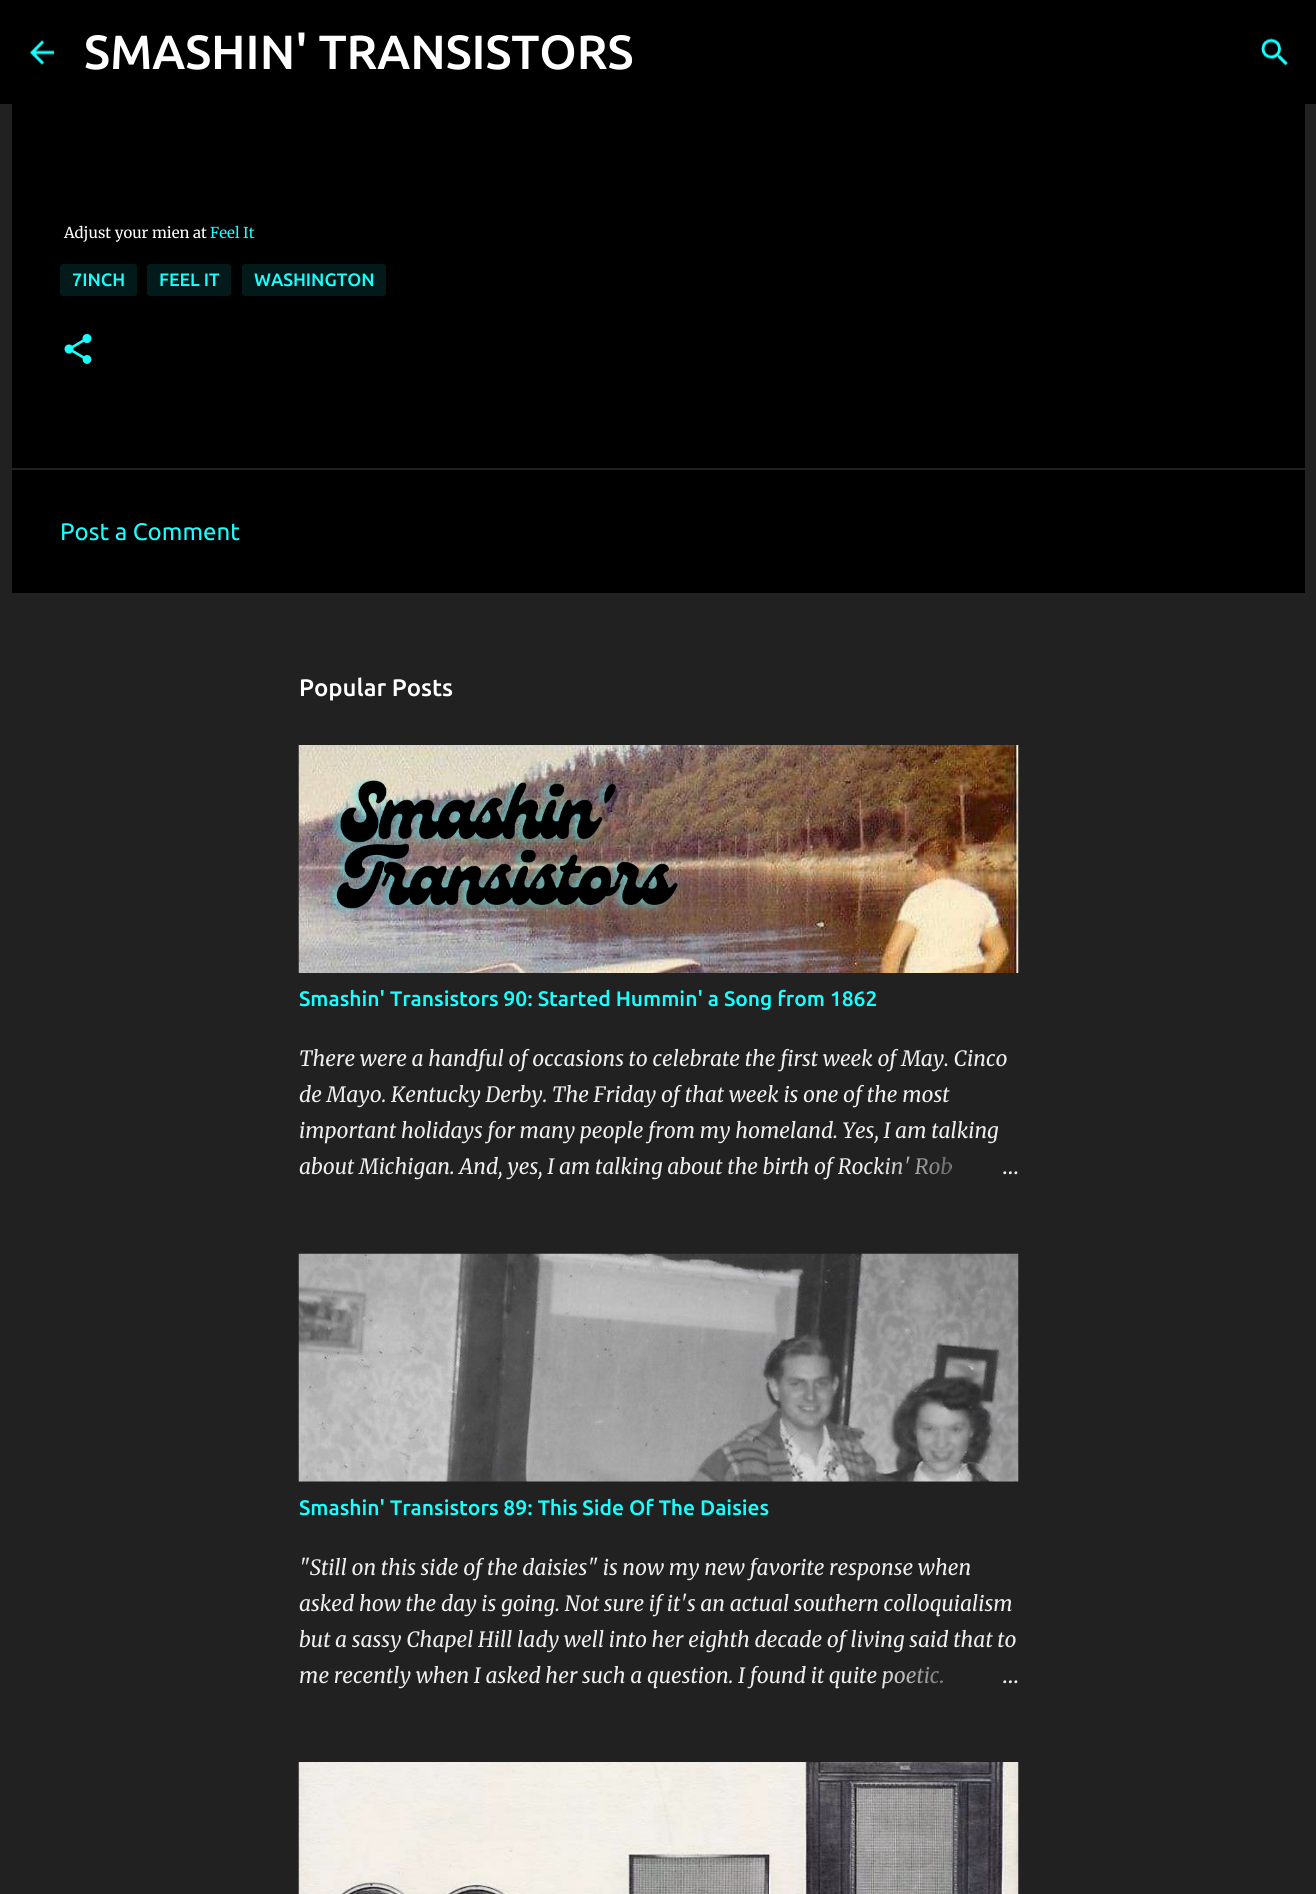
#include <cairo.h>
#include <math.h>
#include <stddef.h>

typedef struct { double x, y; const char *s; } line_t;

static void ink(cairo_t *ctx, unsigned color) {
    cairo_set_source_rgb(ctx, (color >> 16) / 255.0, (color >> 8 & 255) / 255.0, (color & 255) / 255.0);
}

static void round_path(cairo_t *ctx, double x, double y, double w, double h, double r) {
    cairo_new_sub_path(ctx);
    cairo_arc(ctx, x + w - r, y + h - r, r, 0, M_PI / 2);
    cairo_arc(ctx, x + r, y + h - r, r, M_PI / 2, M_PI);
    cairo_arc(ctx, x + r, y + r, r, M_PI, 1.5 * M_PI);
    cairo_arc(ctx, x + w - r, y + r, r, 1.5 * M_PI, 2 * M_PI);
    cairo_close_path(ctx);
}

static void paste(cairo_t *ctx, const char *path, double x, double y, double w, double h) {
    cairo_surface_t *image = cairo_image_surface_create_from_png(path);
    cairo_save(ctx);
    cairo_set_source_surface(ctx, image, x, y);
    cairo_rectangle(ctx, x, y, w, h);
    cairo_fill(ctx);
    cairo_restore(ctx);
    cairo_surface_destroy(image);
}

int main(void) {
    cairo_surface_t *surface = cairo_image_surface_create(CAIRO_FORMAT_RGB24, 1316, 1894);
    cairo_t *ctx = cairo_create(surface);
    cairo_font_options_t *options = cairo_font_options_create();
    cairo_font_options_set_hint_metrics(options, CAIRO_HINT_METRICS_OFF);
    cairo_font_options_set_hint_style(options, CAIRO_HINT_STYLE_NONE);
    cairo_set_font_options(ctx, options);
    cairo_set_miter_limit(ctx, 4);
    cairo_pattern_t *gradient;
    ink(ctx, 0x212121);
    cairo_paint(ctx);
    ink(ctx, 0x000000);
    cairo_rectangle(ctx, 0, 0, 1316, 104);
    cairo_fill(ctx);
    paste(ctx, "media/1.png", 30, 40, 24, 25);
    cairo_select_font_face(ctx, "Ubuntu Medium", CAIRO_FONT_SLANT_NORMAL, CAIRO_FONT_WEIGHT_NORMAL);
    cairo_set_font_size(ctx, 48);
    ink(ctx, 0xFFFFFF);
    cairo_move_to(ctx, 84, 69);
    cairo_show_text(ctx, "SMASHIN' TRANSISTORS");
    paste(ctx, "media/2.png", 1261, 38, 27, 28);
    ink(ctx, 0x000000);
    cairo_rectangle(ctx, 12, 104, 1293, 364);
    cairo_fill(ctx);
    cairo_select_font_face(ctx, "Merriweather Light", CAIRO_FONT_SLANT_NORMAL, CAIRO_FONT_WEIGHT_NORMAL);
    cairo_set_font_size(ctx, 15);
    ink(ctx, 0xFFFFFF);
    cairo_move_to(ctx, 64, 238);
    cairo_show_text(ctx, "Adjust your mien at");
    ink(ctx, 0x18FFFF);
    cairo_move_to(ctx, 210, 238);
    cairo_show_text(ctx, "Feel It");
    ink(ctx, 0x021A1A);
    round_path(ctx, 60, 264, 77, 32, 3);
    cairo_fill(ctx);
    cairo_select_font_face(ctx, "Ubuntu Medium", CAIRO_FONT_SLANT_NORMAL, CAIRO_FONT_WEIGHT_NORMAL);
    cairo_set_font_size(ctx, 18);
    ink(ctx, 0x18FFFF);
    cairo_move_to(ctx, 72, 286);
    cairo_show_text(ctx, "7INCH");
    ink(ctx, 0x021A1A);
    round_path(ctx, 147, 264, 84, 32, 3);
    cairo_fill(ctx);
    ink(ctx, 0x18FFFF);
    cairo_move_to(ctx, 159, 286);
    cairo_show_text(ctx, "FEEL IT");
    ink(ctx, 0x021A1A);
    round_path(ctx, 242, 264, 144, 32, 3);
    cairo_fill(ctx);
    ink(ctx, 0x18FFFF);
    cairo_move_to(ctx, 254, 286);
    cairo_show_text(ctx, "WASHINGTON");
    paste(ctx, "media/3.png", 64, 334, 28, 30);
    ink(ctx, 0x000000);
    cairo_rectangle(ctx, 12, 470, 1293, 123);
    cairo_fill(ctx);
    cairo_select_font_face(ctx, "Ubuntu", CAIRO_FONT_SLANT_NORMAL, CAIRO_FONT_WEIGHT_NORMAL);
    cairo_set_font_size(ctx, 24);
    ink(ctx, 0x18FFFF);
    cairo_move_to(ctx, 60, 540);
    cairo_show_text(ctx, "Post a Comment");
    cairo_select_font_face(ctx, "Ubuntu Medium", CAIRO_FONT_SLANT_NORMAL, CAIRO_FONT_WEIGHT_NORMAL);
    ink(ctx, 0xFFFFFF);
    cairo_move_to(ctx, 299, 696);
    cairo_show_text(ctx, "Popular Posts");
    paste(ctx, "media/4.png", 298, 745, 721, 228);
    cairo_set_font_size(ctx, 21);
    ink(ctx, 0x18FFFF);
    cairo_move_to(ctx, 299, 1006);
    cairo_show_text(ctx, "Smashin' Transistors 90: Started Hummin' a Song from 1862");
    cairo_select_font_face(ctx, "Merriweather", CAIRO_FONT_SLANT_ITALIC, CAIRO_FONT_WEIGHT_NORMAL);
    ink(ctx, 0xEEEEEE);
    {
        static const line_t items[] = {
            {299, 1066, "There were a handful of occasions to celebrate the first week of May. Cinco"},
            {299, 1102, "de Mayo. Kentucky Derby. The Friday of that week is one of the most"},
            {299, 1138, "important holidays for many people from my homeland. Yes, I am talking"},
            {299, 1174, "about Michigan. And, yes, I am talking about the birth of Rockin' Rob"},
        };
        for (size_t i = 0; i < sizeof items / sizeof *items; i++) {
            cairo_move_to(ctx, items[i].x, items[i].y);
            cairo_show_text(ctx, items[i].s);
        }
    }
    gradient = cairo_pattern_create_linear(1019, 1167, 875, 1167);
    cairo_pattern_add_color_stop_rgba(gradient, 0, 0.129, 0.129, 0.129, 1);
    cairo_pattern_add_color_stop_rgba(gradient, 0.2, 0.129, 0.129, 0.129, 1);
    cairo_pattern_add_color_stop_rgba(gradient, 1, 0.129, 0.129, 0.129, 0);
    cairo_set_source(ctx, gradient);
    cairo_pattern_destroy(gradient);
    cairo_rectangle(ctx, 877, 1156, 74, 19);
    cairo_fill(ctx);
    cairo_select_font_face(ctx, "Merriweather Light", CAIRO_FONT_SLANT_NORMAL, CAIRO_FONT_WEIGHT_NORMAL);
    ink(ctx, 0xEEEEEE);
    cairo_move_to(ctx, 1002, 1174);
    cairo_show_text(ctx, "…");
    paste(ctx, "media/5.png", 298, 1253, 721, 229);
    cairo_select_font_face(ctx, "Ubuntu Medium", CAIRO_FONT_SLANT_NORMAL, CAIRO_FONT_WEIGHT_NORMAL);
    ink(ctx, 0x18FFFF);
    cairo_move_to(ctx, 299, 1515);
    cairo_show_text(ctx, "Smashin' Transistors 89: This Side Of The Daisies");
    cairo_select_font_face(ctx, "Merriweather", CAIRO_FONT_SLANT_ITALIC, CAIRO_FONT_WEIGHT_NORMAL);
    ink(ctx, 0xEEEEEE);
    {
        static const line_t items[] = {
            {299, 1575, "\"Still on this side of the daisies\" is now my new favorite response when"},
            {299, 1611, "asked how the day is going. Not sure if it's an actual southern colloquialism"},
            {299, 1647, "but a sassy Chapel Hill lady well into her eighth decade of living said that to"},
            {299, 1683, "me recently when I asked her such a question. I found it quite poetic."},
        };
        for (size_t i = 0; i < sizeof items / sizeof *items; i++) {
            cairo_move_to(ctx, items[i].x, items[i].y);
            cairo_show_text(ctx, items[i].s);
        }
    }
    gradient = cairo_pattern_create_linear(1019, 1676, 875, 1676);
    cairo_pattern_add_color_stop_rgba(gradient, 0, 0.129, 0.129, 0.129, 1);
    cairo_pattern_add_color_stop_rgba(gradient, 0.2, 0.129, 0.129, 0.129, 1);
    cairo_pattern_add_color_stop_rgba(gradient, 1, 0.129, 0.129, 0.129, 0);
    cairo_set_source(ctx, gradient);
    cairo_pattern_destroy(gradient);
    cairo_rectangle(ctx, 881, 1666, 61, 23);
    cairo_fill(ctx);
    cairo_select_font_face(ctx, "Merriweather Light", CAIRO_FONT_SLANT_NORMAL, CAIRO_FONT_WEIGHT_NORMAL);
    ink(ctx, 0xEEEEEE);
    cairo_move_to(ctx, 1002, 1683);
    cairo_show_text(ctx, "…");
    paste(ctx, "media/6.png", 298, 1762, 721, 132);
    cairo_surface_write_to_png(surface, "image.png");
    cairo_font_options_destroy(options);
    cairo_destroy(ctx);
    cairo_surface_destroy(surface);
    return 0;
}
